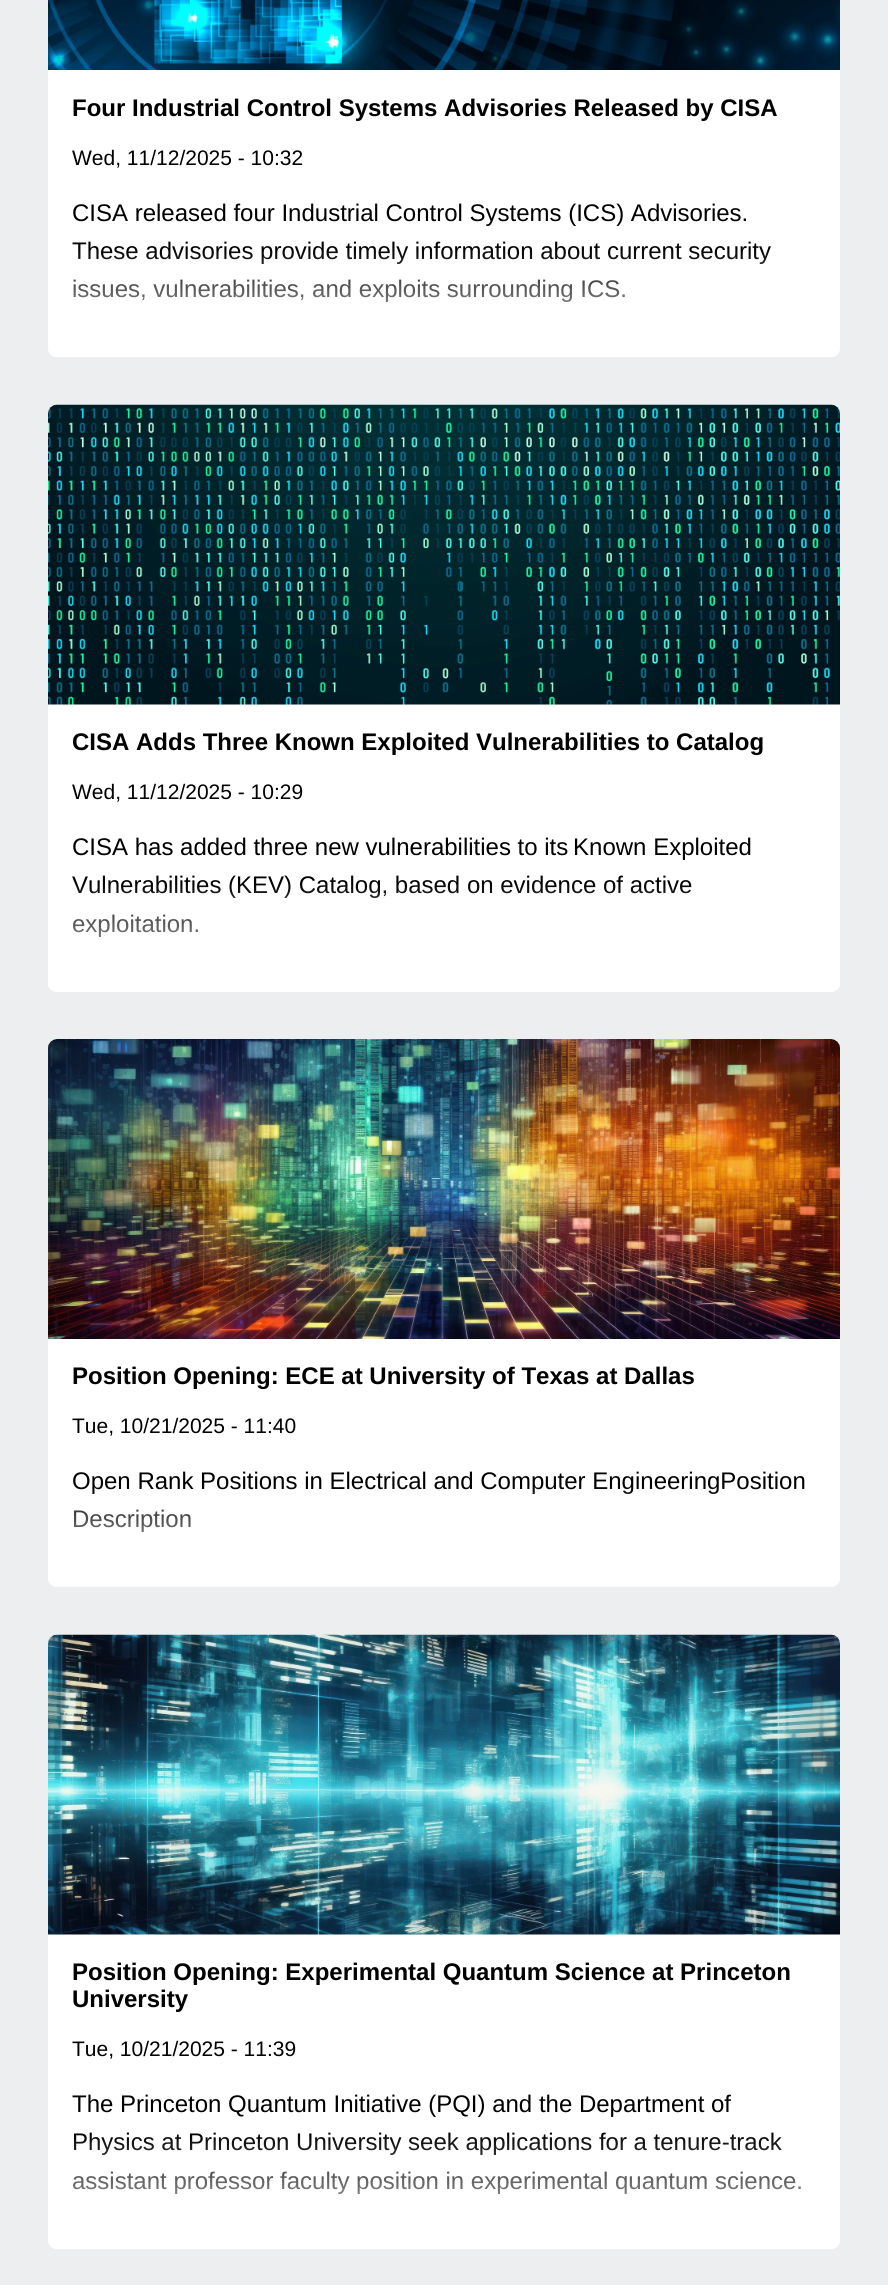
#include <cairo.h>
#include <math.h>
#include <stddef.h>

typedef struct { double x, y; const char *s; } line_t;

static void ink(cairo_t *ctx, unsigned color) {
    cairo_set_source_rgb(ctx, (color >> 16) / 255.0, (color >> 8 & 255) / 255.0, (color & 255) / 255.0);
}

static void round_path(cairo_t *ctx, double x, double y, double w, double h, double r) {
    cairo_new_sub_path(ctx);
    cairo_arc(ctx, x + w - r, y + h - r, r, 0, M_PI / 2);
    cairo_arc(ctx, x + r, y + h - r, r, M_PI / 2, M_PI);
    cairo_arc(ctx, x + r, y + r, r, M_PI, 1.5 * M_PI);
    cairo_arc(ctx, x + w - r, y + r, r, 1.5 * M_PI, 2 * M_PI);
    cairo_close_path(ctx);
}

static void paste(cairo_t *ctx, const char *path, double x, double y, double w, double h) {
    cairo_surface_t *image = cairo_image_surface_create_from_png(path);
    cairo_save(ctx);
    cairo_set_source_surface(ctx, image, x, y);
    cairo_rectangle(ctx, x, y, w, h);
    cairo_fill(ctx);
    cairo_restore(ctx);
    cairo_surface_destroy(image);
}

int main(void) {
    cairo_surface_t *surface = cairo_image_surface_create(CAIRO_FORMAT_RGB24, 888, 2285);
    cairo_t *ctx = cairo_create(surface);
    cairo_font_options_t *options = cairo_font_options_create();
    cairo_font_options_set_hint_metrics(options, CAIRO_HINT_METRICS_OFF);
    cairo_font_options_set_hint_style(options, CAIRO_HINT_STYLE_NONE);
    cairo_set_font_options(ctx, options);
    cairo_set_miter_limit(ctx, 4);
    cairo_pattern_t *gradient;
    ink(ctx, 0xEDEEEF);
    cairo_paint(ctx);
    ink(ctx, 0xFFFFFF);
    round_path(ctx, 48, -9, 792, 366, 9);
    cairo_fill(ctx);
    paste(ctx, "media/1.png", 48, 0, 792, 70);
    cairo_select_font_face(ctx, "Liberation Sans", CAIRO_FONT_SLANT_NORMAL, CAIRO_FONT_WEIGHT_BOLD);
    cairo_set_font_size(ctx, 24);
    ink(ctx, 0x000000);
    cairo_move_to(ctx, 72, 116);
    cairo_show_text(ctx, "Four Industrial Control Systems Advisories Released by CISA");
    cairo_select_font_face(ctx, "Liberation Sans", CAIRO_FONT_SLANT_NORMAL, CAIRO_FONT_WEIGHT_NORMAL);
    cairo_set_font_size(ctx, 21);
    cairo_move_to(ctx, 72, 165);
    cairo_show_text(ctx, "Wed, 11/12/2025 - 10:32");
    cairo_set_font_size(ctx, 24);
    {
        static const line_t items[] = {
            {72, 221, "CISA released four Industrial Control Systems (ICS) Advisories."},
            {72, 259, "These advisories provide timely information about current security"},
            {72, 297, "issues, vulnerabilities, and exploits surrounding ICS."},
        };
        for (size_t i = 0; i < sizeof items / sizeof *items; i++) {
            cairo_move_to(ctx, items[i].x, items[i].y);
            cairo_show_text(ctx, items[i].s);
        }
    }
    gradient = cairo_pattern_create_linear(444, 365, 444, 248);
    cairo_pattern_add_color_stop_rgba(gradient, 0, 1, 1, 1, 1);
    cairo_pattern_add_color_stop_rgba(gradient, 1, 1, 1, 1, 0);
    cairo_set_source(ctx, gradient);
    cairo_pattern_destroy(gradient);
    cairo_new_path(ctx);
    cairo_move_to(ctx, 48, 248);
    cairo_line_to(ctx, 840, 248);
    cairo_line_to(ctx, 840, 348);
    cairo_curve_to(ctx, 840, 353, 836, 357, 831, 357);
    cairo_line_to(ctx, 57, 357);
    cairo_curve_to(ctx, 52, 357, 48, 353, 48, 348);
    cairo_close_path(ctx);
    cairo_fill(ctx);
    ink(ctx, 0xFFFFFF);
    round_path(ctx, 48, 405, 792, 587, 9);
    cairo_fill(ctx);
    paste(ctx, "media/2.png", 48, 404, 792, 301);
    cairo_select_font_face(ctx, "Liberation Sans", CAIRO_FONT_SLANT_NORMAL, CAIRO_FONT_WEIGHT_BOLD);
    ink(ctx, 0x000000);
    cairo_move_to(ctx, 72, 750);
    cairo_show_text(ctx, "CISA Adds Three Known Exploited Vulnerabilities to Catalog");
    cairo_select_font_face(ctx, "Liberation Sans", CAIRO_FONT_SLANT_NORMAL, CAIRO_FONT_WEIGHT_NORMAL);
    cairo_set_font_size(ctx, 21);
    cairo_move_to(ctx, 72, 799);
    cairo_show_text(ctx, "Wed, 11/12/2025 - 10:29");
    cairo_set_font_size(ctx, 24);
    {
        static const line_t items[] = {
            {72, 855, "CISA has added three new vulnerabilities to its Known Exploited"},
            {72, 893, "Vulnerabilities (KEV) Catalog, based on evidence of active"},
            {72, 932, "exploitation."},
        };
        for (size_t i = 0; i < sizeof items / sizeof *items; i++) {
            cairo_move_to(ctx, items[i].x, items[i].y);
            cairo_show_text(ctx, items[i].s);
        }
    }
    gradient = cairo_pattern_create_linear(444, 999, 444, 882);
    cairo_pattern_add_color_stop_rgba(gradient, 0, 1, 1, 1, 1);
    cairo_pattern_add_color_stop_rgba(gradient, 1, 1, 1, 1, 0);
    cairo_set_source(ctx, gradient);
    cairo_pattern_destroy(gradient);
    cairo_new_path(ctx);
    cairo_move_to(ctx, 48, 882);
    cairo_line_to(ctx, 840, 882);
    cairo_line_to(ctx, 840, 983);
    cairo_curve_to(ctx, 840, 988, 836, 992, 831, 992);
    cairo_line_to(ctx, 57, 992);
    cairo_curve_to(ctx, 52, 992, 48, 988, 48, 983);
    cairo_close_path(ctx);
    cairo_fill(ctx);
    ink(ctx, 0xFFFFFF);
    round_path(ctx, 48, 1040, 792, 547, 9);
    cairo_fill(ctx);
    paste(ctx, "media/3.png", 48, 1039, 792, 300);
    cairo_select_font_face(ctx, "Liberation Sans", CAIRO_FONT_SLANT_NORMAL, CAIRO_FONT_WEIGHT_BOLD);
    ink(ctx, 0x000000);
    cairo_move_to(ctx, 72, 1384);
    cairo_show_text(ctx, "Position Opening: ECE at University of Texas at Dallas");
    cairo_select_font_face(ctx, "Liberation Sans", CAIRO_FONT_SLANT_NORMAL, CAIRO_FONT_WEIGHT_NORMAL);
    cairo_set_font_size(ctx, 21);
    cairo_move_to(ctx, 72, 1433);
    cairo_show_text(ctx, "Tue, 10/21/2025 - 11:40");
    cairo_set_font_size(ctx, 24);
    cairo_move_to(ctx, 72, 1489);
    cairo_show_text(ctx, "Open Rank Positions in Electrical and Computer EngineeringPosition");
    cairo_move_to(ctx, 72, 1527);
    cairo_show_text(ctx, "Description");
    gradient = cairo_pattern_create_linear(444, 1595, 444, 1485);
    cairo_pattern_add_color_stop_rgba(gradient, 0, 1, 1, 1, 1);
    cairo_pattern_add_color_stop_rgba(gradient, 1, 1, 1, 1, 0);
    cairo_set_source(ctx, gradient);
    cairo_pattern_destroy(gradient);
    cairo_new_path(ctx);
    cairo_move_to(ctx, 48, 1485);
    cairo_line_to(ctx, 840, 1485);
    cairo_line_to(ctx, 840, 1578);
    cairo_curve_to(ctx, 840, 1583, 836, 1587, 831, 1587);
    cairo_line_to(ctx, 57, 1587);
    cairo_curve_to(ctx, 52, 1587, 48, 1583, 48, 1578);
    cairo_close_path(ctx);
    cairo_fill(ctx);
    ink(ctx, 0xFFFFFF);
    round_path(ctx, 48, 1635, 792, 614, 9);
    cairo_fill(ctx);
    paste(ctx, "media/4.png", 48, 1634, 792, 301);
    cairo_select_font_face(ctx, "Liberation Sans", CAIRO_FONT_SLANT_NORMAL, CAIRO_FONT_WEIGHT_BOLD);
    ink(ctx, 0x000000);
    cairo_move_to(ctx, 72, 1980);
    cairo_show_text(ctx, "Position Opening: Experimental Quantum Science at Princeton");
    cairo_move_to(ctx, 72, 2007);
    cairo_show_text(ctx, "University");
    cairo_select_font_face(ctx, "Liberation Sans", CAIRO_FONT_SLANT_NORMAL, CAIRO_FONT_WEIGHT_NORMAL);
    cairo_set_font_size(ctx, 21);
    cairo_move_to(ctx, 72, 2056);
    cairo_show_text(ctx, "Tue, 10/21/2025 - 11:39");
    cairo_set_font_size(ctx, 24);
    {
        static const line_t items[] = {
            {72, 2112, "The Princeton Quantum Initiative (PQI) and the Department of"},
            {72, 2150, "Physics at Princeton University seek applications for a tenure-track"},
            {72, 2189, "assistant professor faculty position in experimental quantum science."},
        };
        for (size_t i = 0; i < sizeof items / sizeof *items; i++) {
            cairo_move_to(ctx, items[i].x, items[i].y);
            cairo_show_text(ctx, items[i].s);
        }
    }
    gradient = cairo_pattern_create_linear(444, 2256, 444, 2133);
    cairo_pattern_add_color_stop_rgba(gradient, 0, 1, 1, 1, 1);
    cairo_pattern_add_color_stop_rgba(gradient, 1, 1, 1, 1, 0);
    cairo_set_source(ctx, gradient);
    cairo_pattern_destroy(gradient);
    cairo_new_path(ctx);
    cairo_move_to(ctx, 48, 2133);
    cairo_line_to(ctx, 840, 2133);
    cairo_line_to(ctx, 840, 2240);
    cairo_curve_to(ctx, 840, 2245, 836, 2249, 831, 2249);
    cairo_line_to(ctx, 57, 2249);
    cairo_curve_to(ctx, 52, 2249, 48, 2245, 48, 2240);
    cairo_close_path(ctx);
    cairo_fill(ctx);
    cairo_surface_write_to_png(surface, "image.png");
    cairo_font_options_destroy(options);
    cairo_destroy(ctx);
    cairo_surface_destroy(surface);
    return 0;
}
